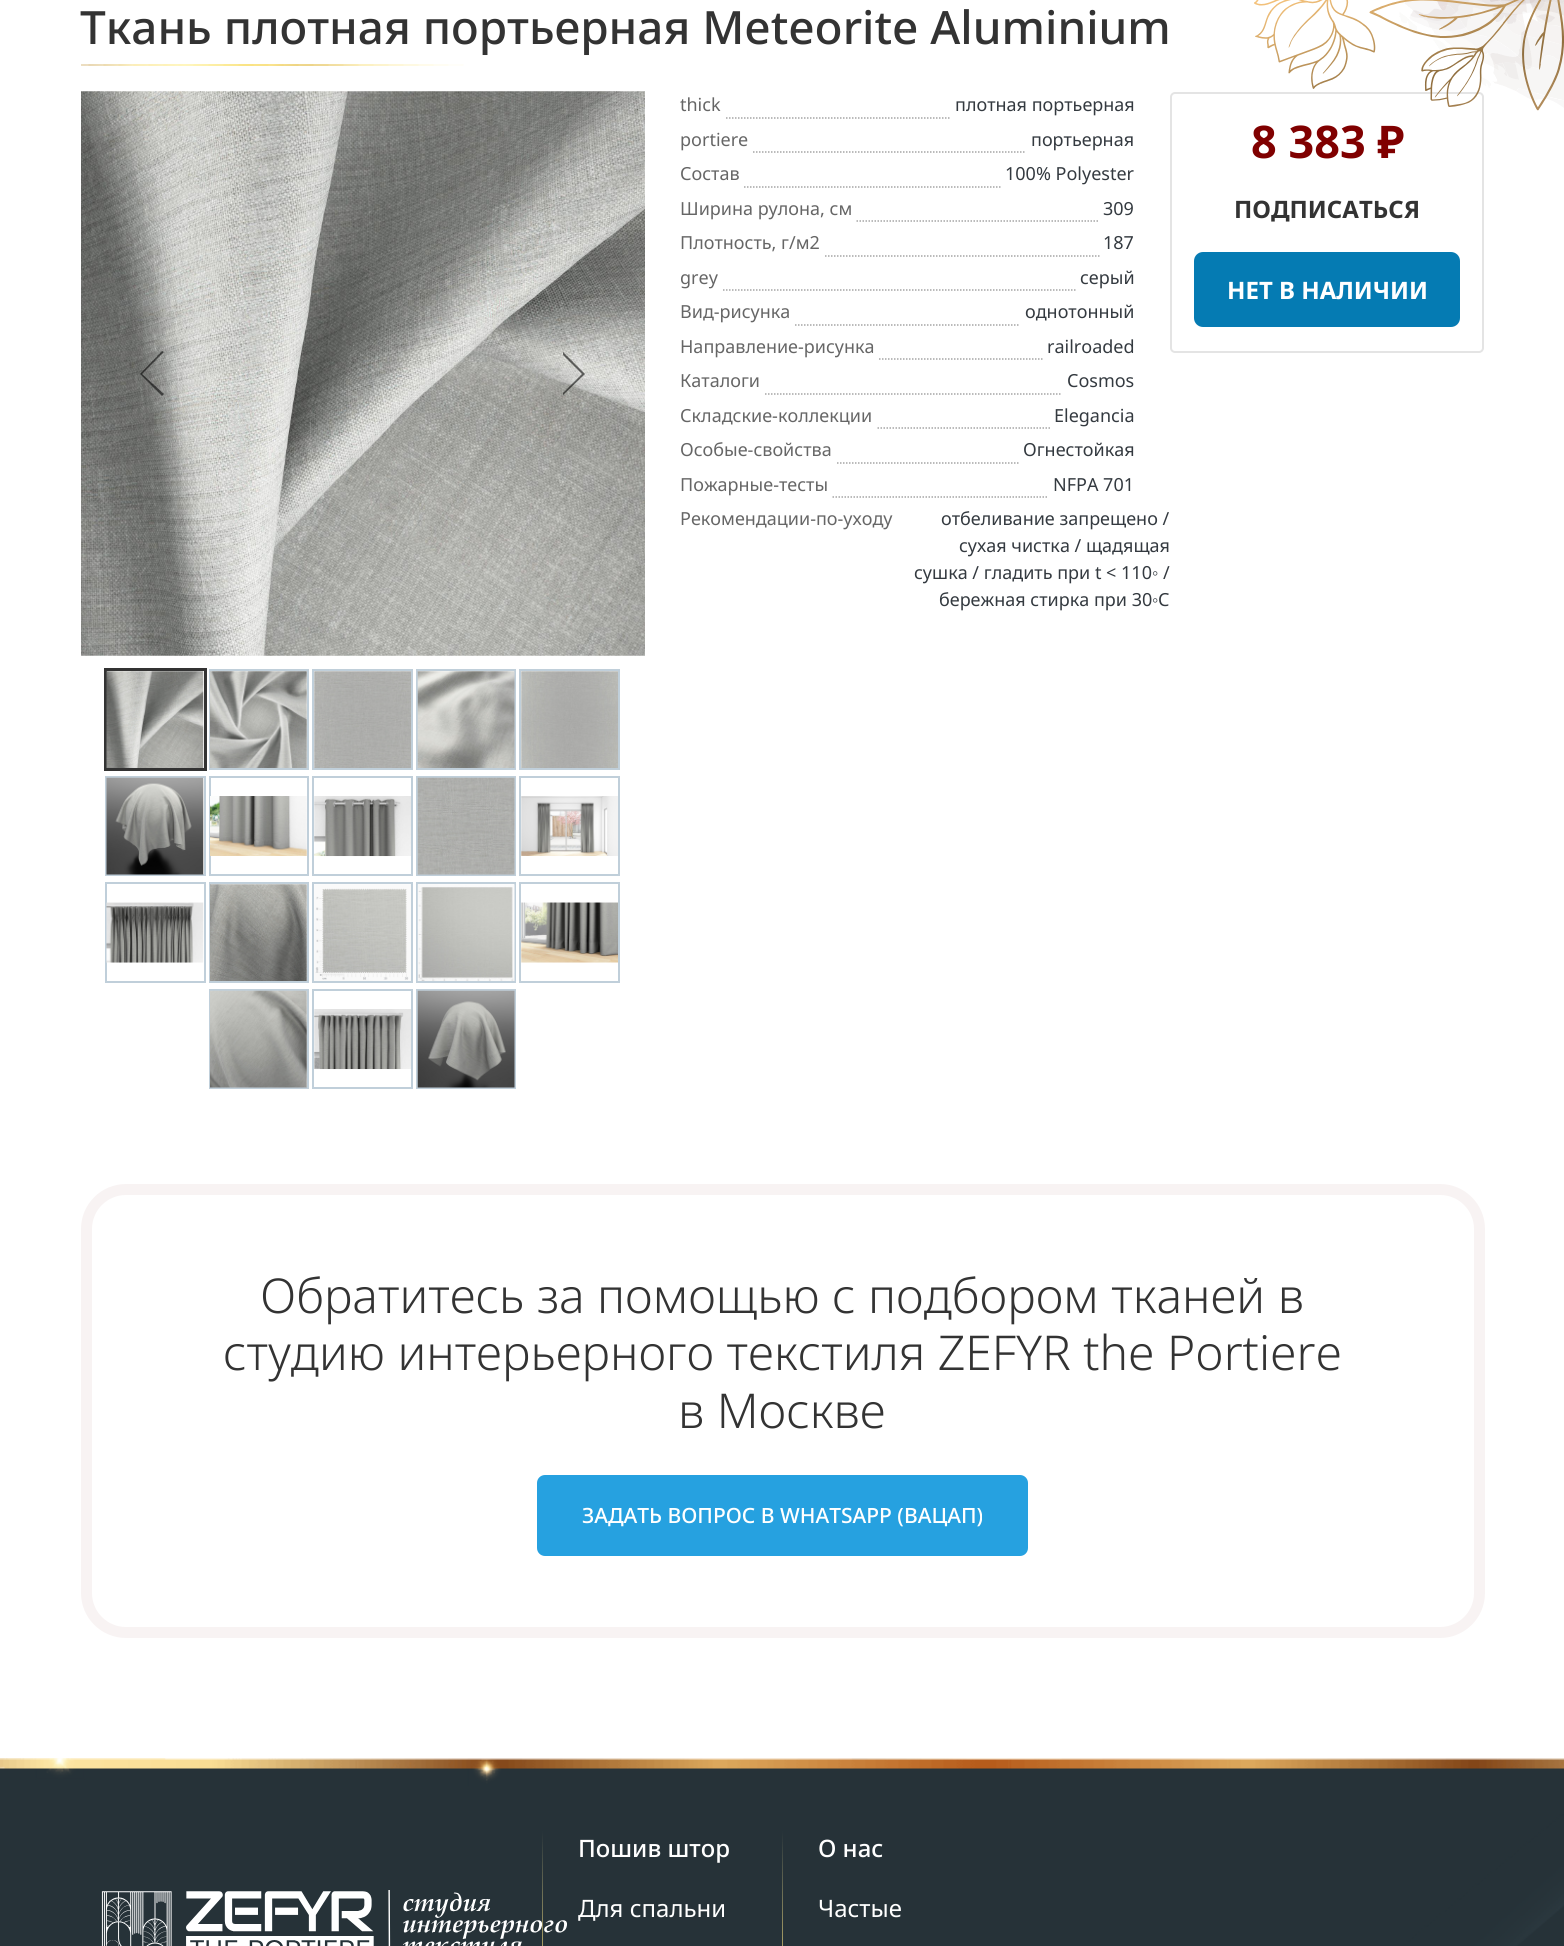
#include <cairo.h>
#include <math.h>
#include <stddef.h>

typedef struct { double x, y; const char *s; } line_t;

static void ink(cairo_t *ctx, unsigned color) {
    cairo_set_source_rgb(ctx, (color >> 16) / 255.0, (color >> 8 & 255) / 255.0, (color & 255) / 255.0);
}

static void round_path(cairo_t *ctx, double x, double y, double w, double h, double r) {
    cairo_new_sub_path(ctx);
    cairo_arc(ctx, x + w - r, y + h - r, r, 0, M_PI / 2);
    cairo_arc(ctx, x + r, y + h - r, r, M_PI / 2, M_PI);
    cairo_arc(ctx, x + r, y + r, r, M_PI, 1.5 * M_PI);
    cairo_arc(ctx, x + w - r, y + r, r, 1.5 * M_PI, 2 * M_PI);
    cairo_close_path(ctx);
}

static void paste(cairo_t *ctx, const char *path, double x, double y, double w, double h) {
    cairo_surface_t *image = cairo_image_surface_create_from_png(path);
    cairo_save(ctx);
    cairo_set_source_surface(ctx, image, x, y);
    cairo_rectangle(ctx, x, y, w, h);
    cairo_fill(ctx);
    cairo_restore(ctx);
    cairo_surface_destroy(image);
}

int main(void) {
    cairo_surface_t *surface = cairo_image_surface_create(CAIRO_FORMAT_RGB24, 1564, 1946);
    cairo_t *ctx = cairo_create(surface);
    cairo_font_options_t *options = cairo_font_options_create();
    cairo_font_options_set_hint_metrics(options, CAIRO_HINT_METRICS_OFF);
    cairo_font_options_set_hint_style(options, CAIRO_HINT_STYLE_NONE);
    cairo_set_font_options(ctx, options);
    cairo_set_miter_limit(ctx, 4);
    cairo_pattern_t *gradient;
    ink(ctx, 0xFFFFFF);
    cairo_paint(ctx);
    round_path(ctx, 1171, 93, 312, 259, 4);
    ink(ctx, 0xE4E4E4);
    cairo_stroke(ctx);
    paste(ctx, "media/1.png", 1254, 0, 310, 111);
    cairo_save(ctx);
    cairo_rectangle(ctx, 81, 63, 390, 5);
    cairo_clip(ctx);
    gradient = cairo_pattern_create_radial(0, 0, 0, 0, 0, 1);
    cairo_pattern_set_matrix(gradient, &(cairo_matrix_t){1.0 / 301, 0, 0, 1.0 / 351, -1.0 * 317 / 301, -1.0 * 180 / 351});
    cairo_pattern_add_color_stop_rgba(gradient, 0, 0.976, 0.875, 0.486, 1);
    cairo_pattern_add_color_stop_rgba(gradient, 0.2, 0.71, 0.494, 0.067, 1);
    cairo_pattern_add_color_stop_rgba(gradient, 0.23, 0.725, 0.518, 0.094, 1);
    cairo_pattern_add_color_stop_rgba(gradient, 0.27, 0.78, 0.592, 0.176, 1);
    cairo_pattern_add_color_stop_rgba(gradient, 0.31, 0.863, 0.714, 0.31, 1);
    cairo_pattern_add_color_stop_rgba(gradient, 0.36, 0.976, 0.875, 0.486, 1);
    cairo_pattern_add_color_stop_rgba(gradient, 0.55, 1, 0.953, 0.655, 1);
    cairo_pattern_add_color_stop_rgba(gradient, 0.69, 0.976, 0.875, 0.486, 1);
    cairo_pattern_add_color_stop_rgba(gradient, 0.84, 0.71, 0.494, 0.067, 1);
    cairo_pattern_add_color_stop_rgba(gradient, 0.95, 0.898, 0.761, 0.361, 1);
    cairo_pattern_add_color_stop_rgba(gradient, 1, 0.976, 0.875, 0.486, 1);
    cairo_set_source(ctx, gradient);
    cairo_pattern_destroy(gradient);
    cairo_new_path(ctx);
    cairo_move_to(ctx, 21, 65);
    cairo_line_to(ctx, 246, 66);
    cairo_line_to(ctx, 471, 65);
    cairo_line_to(ctx, 246, 64);
    cairo_close_path(ctx);
    cairo_fill(ctx);
    cairo_restore(ctx);
    cairo_select_font_face(ctx, "Noto Sans Medium", CAIRO_FONT_SLANT_NORMAL, CAIRO_FONT_WEIGHT_NORMAL);
    cairo_set_font_size(ctx, 45.9);
    ink(ctx, 0x333333);
    cairo_move_to(ctx, 80, 44);
    cairo_show_text(ctx, "Ткань плотная портьерная Meteorite Aluminium");
    paste(ctx, "media/2.png", 81, 91, 564, 565);
    paste(ctx, "media/3.png", 81, 91, 564, 565);
    cairo_set_source_rgba(ctx, 0, 0, 0, 0.57);
    cairo_set_fill_rule(ctx, CAIRO_FILL_RULE_EVEN_ODD);
    cairo_new_path(ctx);
    cairo_move_to(ctx, 164, 394);
    cairo_line_to(ctx, 142, 374);
    cairo_line_to(ctx, 164, 352);
    cairo_line_to(ctx, 162, 351);
    cairo_line_to(ctx, 140, 374);
    cairo_line_to(ctx, 162, 396);
    cairo_close_path(ctx);
    cairo_fill(ctx);
    cairo_save(ctx);
    cairo_set_fill_rule(ctx, CAIRO_FILL_RULE_WINDING);
    cairo_rectangle(ctx, 563, 351, 24, 45);
    cairo_clip(ctx);
    cairo_set_fill_rule(ctx, CAIRO_FILL_RULE_EVEN_ODD);
    cairo_new_path(ctx);
    cairo_move_to(ctx, 561, 353);
    cairo_line_to(ctx, 582, 374);
    cairo_line_to(ctx, 561, 395);
    cairo_line_to(ctx, 562, 396);
    cairo_line_to(ctx, 585, 374);
    cairo_line_to(ctx, 562, 351);
    cairo_close_path(ctx);
    cairo_fill(ctx);
    cairo_restore(ctx);
    cairo_rectangle(ctx, 105.5, 669.5, 100, 100);
    ink(ctx, 0x333333);
    cairo_set_line_width(ctx, 3);
    cairo_stroke(ctx);
    paste(ctx, "media/4.png", 106, 671, 98, 97);
    cairo_rectangle(ctx, 210, 670, 98, 99);
    ink(ctx, 0xC0CFDA);
    cairo_set_line_width(ctx, 2);
    cairo_stroke(ctx);
    paste(ctx, "media/5.png", 210, 671, 97, 97);
    cairo_rectangle(ctx, 313, 670, 99, 99);
    cairo_stroke(ctx);
    paste(ctx, "media/6.png", 314, 671, 97, 97);
    cairo_rectangle(ctx, 417, 670, 98, 99);
    cairo_stroke(ctx);
    paste(ctx, "media/7.png", 417, 671, 98, 97);
    cairo_rectangle(ctx, 520, 670, 99, 99);
    cairo_stroke(ctx);
    paste(ctx, "media/8.png", 521, 671, 97, 97);
    cairo_rectangle(ctx, 106, 777, 99, 98);
    cairo_stroke(ctx);
    paste(ctx, "media/9.png", 106, 777, 98, 98);
    cairo_rectangle(ctx, 210, 777, 98, 98);
    cairo_stroke(ctx);
    paste(ctx, "media/10.png", 210, 796, 97, 60);
    cairo_rectangle(ctx, 313, 777, 99, 98);
    cairo_stroke(ctx);
    paste(ctx, "media/11.png", 314, 796, 97, 61);
    cairo_rectangle(ctx, 417, 777, 98, 98);
    cairo_stroke(ctx);
    paste(ctx, "media/12.png", 417, 777, 98, 98);
    cairo_rectangle(ctx, 520, 777, 99, 98);
    cairo_stroke(ctx);
    paste(ctx, "media/13.png", 521, 796, 97, 60);
    cairo_rectangle(ctx, 106, 883, 99, 99);
    cairo_stroke(ctx);
    paste(ctx, "media/14.png", 106, 902, 98, 61);
    cairo_rectangle(ctx, 210, 883, 98, 99);
    cairo_stroke(ctx);
    paste(ctx, "media/15.png", 210, 884, 97, 97);
    cairo_rectangle(ctx, 313, 883, 99, 99);
    cairo_stroke(ctx);
    paste(ctx, "media/16.png", 314, 884, 97, 97);
    cairo_rectangle(ctx, 417, 883, 98, 99);
    cairo_stroke(ctx);
    paste(ctx, "media/17.png", 417, 884, 98, 97);
    cairo_rectangle(ctx, 520, 883, 99, 99);
    cairo_stroke(ctx);
    paste(ctx, "media/18.png", 521, 902, 97, 61);
    cairo_rectangle(ctx, 210, 990, 98, 98);
    cairo_stroke(ctx);
    paste(ctx, "media/19.png", 210, 990, 97, 98);
    cairo_rectangle(ctx, 313, 990, 99, 98);
    cairo_stroke(ctx);
    paste(ctx, "media/20.png", 314, 1009, 97, 61);
    cairo_rectangle(ctx, 417, 990, 98, 98);
    cairo_stroke(ctx);
    paste(ctx, "media/21.png", 417, 990, 98, 98);
    cairo_select_font_face(ctx, "Noto Sans", CAIRO_FONT_SLANT_NORMAL, CAIRO_FONT_WEIGHT_NORMAL);
    cairo_set_font_size(ctx, 18);
    ink(ctx, 0x666666);
    cairo_move_to(ctx, 680, 111);
    cairo_show_text(ctx, "thick");
    ink(ctx, 0x343A40);
    cairo_move_to(ctx, 955, 111);
    cairo_show_text(ctx, "плотная портьерная");
    cairo_new_path(ctx);
    cairo_move_to(ctx, 726, 118);
    cairo_line_to(ctx, 949.5, 118);
    ink(ctx, 0xA5A5A5);
    cairo_set_line_width(ctx, 1.5);
    cairo_set_dash(ctx, (double[]){1.5, 1.5}, 2, 0);
    cairo_stroke(ctx);
    ink(ctx, 0x666666);
    cairo_move_to(ctx, 680, 146);
    cairo_show_text(ctx, "portiere");
    ink(ctx, 0x343A40);
    cairo_move_to(ctx, 1031, 146);
    cairo_show_text(ctx, "портьерная");
    cairo_new_path(ctx);
    cairo_move_to(ctx, 753, 152);
    cairo_line_to(ctx, 1026, 152);
    ink(ctx, 0xA5A5A5);
    cairo_stroke(ctx);
    ink(ctx, 0x666666);
    cairo_move_to(ctx, 680, 180);
    cairo_show_text(ctx, "Состав");
    ink(ctx, 0x343A40);
    cairo_move_to(ctx, 1005, 180);
    cairo_show_text(ctx, "100% Polyester");
    cairo_new_path(ctx);
    cairo_move_to(ctx, 744, 187);
    cairo_line_to(ctx, 1000.5, 187);
    ink(ctx, 0xA5A5A5);
    cairo_stroke(ctx);
    ink(ctx, 0x666666);
    cairo_move_to(ctx, 680, 215);
    cairo_show_text(ctx, "Ширина рулона, см");
    ink(ctx, 0x343A40);
    cairo_move_to(ctx, 1103, 215);
    cairo_show_text(ctx, "309");
    cairo_new_path(ctx);
    cairo_move_to(ctx, 856.5, 221);
    cairo_line_to(ctx, 1099.5, 221);
    ink(ctx, 0xA5A5A5);
    cairo_stroke(ctx);
    ink(ctx, 0x666666);
    cairo_move_to(ctx, 680, 249);
    cairo_show_text(ctx, "Плотность, г/м2");
    ink(ctx, 0x343A40);
    cairo_move_to(ctx, 1103, 249);
    cairo_show_text(ctx, "187");
    cairo_new_path(ctx);
    cairo_move_to(ctx, 825, 256);
    cairo_line_to(ctx, 1099.5, 256);
    ink(ctx, 0xA5A5A5);
    cairo_stroke(ctx);
    ink(ctx, 0x666666);
    cairo_move_to(ctx, 680, 284);
    cairo_show_text(ctx, "grey");
    ink(ctx, 0x343A40);
    cairo_move_to(ctx, 1080, 284);
    cairo_show_text(ctx, "серый");
    cairo_new_path(ctx);
    cairo_move_to(ctx, 723, 290);
    cairo_line_to(ctx, 1075.5, 290);
    ink(ctx, 0xA5A5A5);
    cairo_stroke(ctx);
    ink(ctx, 0x666666);
    cairo_move_to(ctx, 680, 318);
    cairo_show_text(ctx, "Вид-рисунка");
    ink(ctx, 0x343A40);
    cairo_move_to(ctx, 1025, 318);
    cairo_show_text(ctx, "однотонный");
    cairo_new_path(ctx);
    cairo_move_to(ctx, 795, 325);
    cairo_line_to(ctx, 1020, 325);
    ink(ctx, 0xA5A5A5);
    cairo_stroke(ctx);
    ink(ctx, 0x666666);
    cairo_move_to(ctx, 680, 353);
    cairo_show_text(ctx, "Направление-рисунка");
    ink(ctx, 0x343A40);
    cairo_move_to(ctx, 1047, 353);
    cairo_show_text(ctx, "railroaded");
    cairo_new_path(ctx);
    cairo_move_to(ctx, 879, 359);
    cairo_line_to(ctx, 1042.5, 359);
    ink(ctx, 0xA5A5A5);
    cairo_stroke(ctx);
    ink(ctx, 0x666666);
    cairo_move_to(ctx, 680, 387);
    cairo_show_text(ctx, "Каталоги");
    ink(ctx, 0x343A40);
    cairo_move_to(ctx, 1067, 387);
    cairo_show_text(ctx, "Cosmos");
    cairo_new_path(ctx);
    cairo_move_to(ctx, 765, 394);
    cairo_line_to(ctx, 1062, 394);
    ink(ctx, 0xA5A5A5);
    cairo_stroke(ctx);
    ink(ctx, 0x666666);
    cairo_move_to(ctx, 680, 422);
    cairo_show_text(ctx, "Складские-коллекции");
    ink(ctx, 0x343A40);
    cairo_move_to(ctx, 1054, 422);
    cairo_show_text(ctx, "Elegancia");
    cairo_new_path(ctx);
    cairo_move_to(ctx, 877.5, 428);
    cairo_line_to(ctx, 1050, 428);
    ink(ctx, 0xA5A5A5);
    cairo_stroke(ctx);
    ink(ctx, 0x666666);
    cairo_move_to(ctx, 680, 456);
    cairo_show_text(ctx, "Особые-свойства");
    ink(ctx, 0x343A40);
    cairo_move_to(ctx, 1023, 456);
    cairo_show_text(ctx, "Огнестойкая");
    cairo_new_path(ctx);
    cairo_move_to(ctx, 837, 463);
    cairo_line_to(ctx, 1018.5, 463);
    ink(ctx, 0xA5A5A5);
    cairo_stroke(ctx);
    ink(ctx, 0x666666);
    cairo_move_to(ctx, 680, 491);
    cairo_show_text(ctx, "Пожарные-тесты");
    ink(ctx, 0x343A40);
    cairo_move_to(ctx, 1053, 491);
    cairo_show_text(ctx, "NFPA 701");
    cairo_new_path(ctx);
    cairo_move_to(ctx, 832.5, 497);
    cairo_line_to(ctx, 1048.5, 497);
    ink(ctx, 0xA5A5A5);
    cairo_stroke(ctx);
    ink(ctx, 0x666666);
    cairo_move_to(ctx, 680, 525);
    cairo_show_text(ctx, "Рекомендации-по-уходу");
    ink(ctx, 0x343A40);
    {
        static const line_t items[] = {
            {941, 525, "отбеливание запрещено /"},
            {959, 552, "сухая чистка / щадящая"},
            {914, 579, "сушка / гладить при t < 110"},
        };
        for (size_t i = 0; i < sizeof items / sizeof *items; i++) {
            cairo_move_to(ctx, items[i].x, items[i].y);
            cairo_show_text(ctx, items[i].s);
        }
    }
    cairo_select_font_face(ctx, "Liberation Sans", CAIRO_FONT_SLANT_NORMAL, CAIRO_FONT_WEIGHT_NORMAL);
    cairo_move_to(ctx, 1152, 579);
    cairo_show_text(ctx, "◦");
    cairo_select_font_face(ctx, "Noto Sans", CAIRO_FONT_SLANT_NORMAL, CAIRO_FONT_WEIGHT_NORMAL);
    cairo_move_to(ctx, 1163, 579);
    cairo_show_text(ctx, "/");
    cairo_move_to(ctx, 939, 606);
    cairo_show_text(ctx, "бережная стирка при 30");
    cairo_select_font_face(ctx, "Liberation Sans", CAIRO_FONT_SLANT_NORMAL, CAIRO_FONT_WEIGHT_NORMAL);
    cairo_move_to(ctx, 1152, 606);
    cairo_show_text(ctx, "◦");
    cairo_select_font_face(ctx, "Noto Sans", CAIRO_FONT_SLANT_NORMAL, CAIRO_FONT_WEIGHT_NORMAL);
    cairo_move_to(ctx, 1158, 606);
    cairo_show_text(ctx, "C");
    cairo_select_font_face(ctx, "Noto Sans", CAIRO_FONT_SLANT_NORMAL, CAIRO_FONT_WEIGHT_BOLD);
    cairo_set_font_size(ctx, 45);
    ink(ctx, 0x800000);
    cairo_move_to(ctx, 1251, 158);
    cairo_show_text(ctx, "8 383 ₽");
    cairo_set_font_size(ctx, 24);
    ink(ctx, 0x333333);
    cairo_move_to(ctx, 1234, 218);
    cairo_show_text(ctx, "ПОДПИСАТЬСЯ");
    ink(ctx, 0x057BB3);
    round_path(ctx, 1195, 253, 264, 73, 8);
    cairo_fill_preserve(ctx);
    cairo_set_line_width(ctx, 2);
    cairo_set_dash(ctx, NULL, 0, 0);
    cairo_stroke(ctx);
    ink(ctx, 0xFFFFFF);
    cairo_move_to(ctx, 1227, 299);
    cairo_show_text(ctx, "НЕТ В НАЛИЧИИ");
    round_path(ctx, 86.5, 1189.5, 1393, 443, 39.5);
    ink(ctx, 0xF8F3F3);
    cairo_set_line_width(ctx, 11);
    cairo_stroke(ctx);
    cairo_select_font_face(ctx, "Noto Sans Light", CAIRO_FONT_SLANT_NORMAL, CAIRO_FONT_WEIGHT_NORMAL);
    cairo_set_font_size(ctx, 48);
    ink(ctx, 0x333333);
    {
        static const line_t items[] = {
            {260, 1313, "Обратитесь за помощью с подбором тканей в"},
            {223, 1370, "студию интерьерного текстиля ZEFYR the Portiere"},
            {678, 1428, "в Москве"},
        };
        for (size_t i = 0; i < sizeof items / sizeof *items; i++) {
            cairo_move_to(ctx, items[i].x, items[i].y);
            cairo_show_text(ctx, items[i].s);
        }
    }
    ink(ctx, 0x26A1E0);
    round_path(ctx, 537, 1475, 491, 81, 8);
    cairo_fill(ctx);
    cairo_select_font_face(ctx, "Noto Sans Medium", CAIRO_FONT_SLANT_NORMAL, CAIRO_FONT_WEIGHT_NORMAL);
    cairo_set_font_size(ctx, 21);
    ink(ctx, 0xFFFFFF);
    cairo_move_to(ctx, 582, 1523);
    cairo_show_text(ctx, "ЗАДАТЬ ВОПРОС В WHATSAPP (ВАЦАП)");
    ink(ctx, 0x263238);
    cairo_rectangle(ctx, 0, 1768, 1564, 178);
    cairo_fill(ctx);
    paste(ctx, "media/22.png", 0, 1758, 1564, 188);
    gradient = cairo_pattern_create_radial(0, 0, 0, 0, 0, 1);
    cairo_pattern_set_matrix(gradient, &(cairo_matrix_t){1.0 / 251, 0, 0, 1.0 / 293, -1.0 * 638 / 251, -1.0 * 1959 / 293});
    cairo_pattern_add_color_stop_rgba(gradient, 0, 0.976, 0.875, 0.486, 1);
    cairo_pattern_add_color_stop_rgba(gradient, 0.2, 0.71, 0.494, 0.067, 1);
    cairo_pattern_add_color_stop_rgba(gradient, 0.23, 0.725, 0.518, 0.094, 1);
    cairo_pattern_add_color_stop_rgba(gradient, 0.27, 0.78, 0.592, 0.176, 1);
    cairo_pattern_add_color_stop_rgba(gradient, 0.31, 0.863, 0.714, 0.31, 1);
    cairo_pattern_add_color_stop_rgba(gradient, 0.36, 0.976, 0.875, 0.486, 1);
    cairo_pattern_add_color_stop_rgba(gradient, 0.55, 1, 0.953, 0.655, 1);
    cairo_pattern_add_color_stop_rgba(gradient, 0.69, 0.976, 0.875, 0.486, 1);
    cairo_pattern_add_color_stop_rgba(gradient, 0.84, 0.71, 0.494, 0.067, 1);
    cairo_pattern_add_color_stop_rgba(gradient, 0.95, 0.898, 0.761, 0.361, 1);
    cairo_pattern_add_color_stop_rgba(gradient, 1, 0.976, 0.875, 0.486, 1);
    cairo_set_source(ctx, gradient);
    cairo_pattern_destroy(gradient);
    cairo_set_fill_rule(ctx, CAIRO_FILL_RULE_WINDING);
    cairo_new_path(ctx);
    cairo_move_to(ctx, 542, 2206);
    cairo_line_to(ctx, 543, 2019);
    cairo_line_to(ctx, 542, 1831);
    cairo_line_to(ctx, 542, 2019);
    cairo_close_path(ctx);
    cairo_fill(ctx);
    paste(ctx, "media/23.png", 101, 1890, 466, 56);
    cairo_set_font_size(ctx, 24);
    ink(ctx, 0xFFFFFF);
    cairo_move_to(ctx, 578, 1857);
    cairo_show_text(ctx, "Пошив штор");
    cairo_select_font_face(ctx, "Noto Sans", CAIRO_FONT_SLANT_NORMAL, CAIRO_FONT_WEIGHT_NORMAL);
    cairo_move_to(ctx, 578, 1917);
    cairo_show_text(ctx, "Для спальни");
    gradient = cairo_pattern_create_radial(0, 0, 0, 0, 0, 1);
    cairo_pattern_set_matrix(gradient, &(cairo_matrix_t){1.0 / 251, 0, 0, 1.0 / 293, -1.0 * 878 / 251, -1.0 * 1959 / 293});
    cairo_pattern_add_color_stop_rgba(gradient, 0, 0.976, 0.875, 0.486, 1);
    cairo_pattern_add_color_stop_rgba(gradient, 0.2, 0.71, 0.494, 0.067, 1);
    cairo_pattern_add_color_stop_rgba(gradient, 0.23, 0.725, 0.518, 0.094, 1);
    cairo_pattern_add_color_stop_rgba(gradient, 0.27, 0.78, 0.592, 0.176, 1);
    cairo_pattern_add_color_stop_rgba(gradient, 0.31, 0.863, 0.714, 0.31, 1);
    cairo_pattern_add_color_stop_rgba(gradient, 0.36, 0.976, 0.875, 0.486, 1);
    cairo_pattern_add_color_stop_rgba(gradient, 0.55, 1, 0.953, 0.655, 1);
    cairo_pattern_add_color_stop_rgba(gradient, 0.69, 0.976, 0.875, 0.486, 1);
    cairo_pattern_add_color_stop_rgba(gradient, 0.84, 0.71, 0.494, 0.067, 1);
    cairo_pattern_add_color_stop_rgba(gradient, 0.95, 0.898, 0.761, 0.361, 1);
    cairo_pattern_add_color_stop_rgba(gradient, 1, 0.976, 0.875, 0.486, 1);
    cairo_set_source(ctx, gradient);
    cairo_pattern_destroy(gradient);
    cairo_new_path(ctx);
    cairo_move_to(ctx, 782, 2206);
    cairo_line_to(ctx, 783, 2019);
    cairo_line_to(ctx, 782, 1831);
    cairo_line_to(ctx, 782, 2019);
    cairo_close_path(ctx);
    cairo_fill(ctx);
    cairo_select_font_face(ctx, "Noto Sans Medium", CAIRO_FONT_SLANT_NORMAL, CAIRO_FONT_WEIGHT_NORMAL);
    ink(ctx, 0xFFFFFF);
    cairo_move_to(ctx, 818, 1857);
    cairo_show_text(ctx, "О нас");
    cairo_select_font_face(ctx, "Noto Sans", CAIRO_FONT_SLANT_NORMAL, CAIRO_FONT_WEIGHT_NORMAL);
    cairo_move_to(ctx, 818, 1917);
    cairo_show_text(ctx, "Частые");
    cairo_surface_write_to_png(surface, "image.png");
    cairo_font_options_destroy(options);
    cairo_destroy(ctx);
    cairo_surface_destroy(surface);
    return 0;
}
